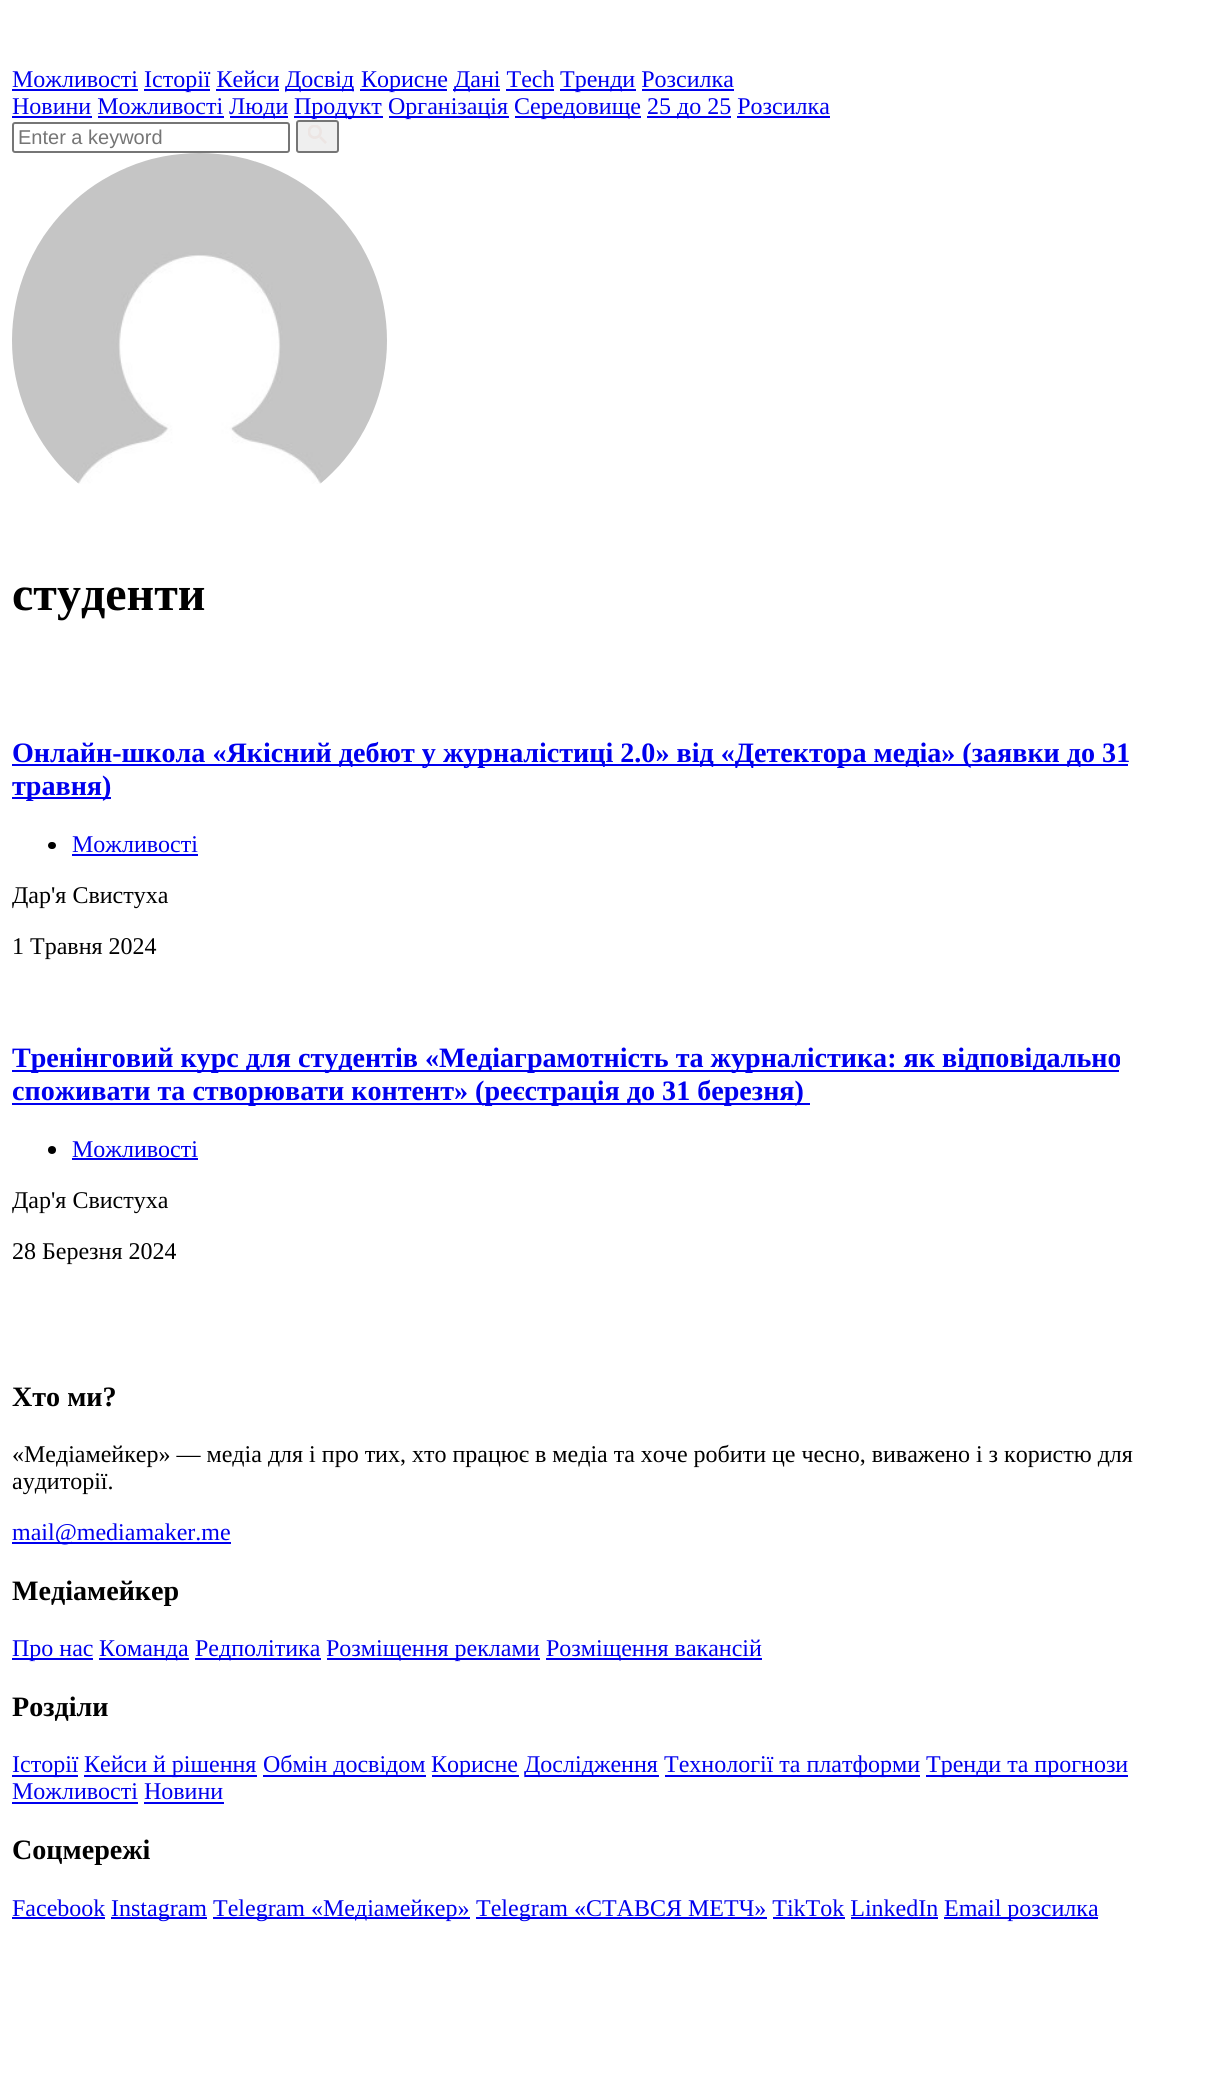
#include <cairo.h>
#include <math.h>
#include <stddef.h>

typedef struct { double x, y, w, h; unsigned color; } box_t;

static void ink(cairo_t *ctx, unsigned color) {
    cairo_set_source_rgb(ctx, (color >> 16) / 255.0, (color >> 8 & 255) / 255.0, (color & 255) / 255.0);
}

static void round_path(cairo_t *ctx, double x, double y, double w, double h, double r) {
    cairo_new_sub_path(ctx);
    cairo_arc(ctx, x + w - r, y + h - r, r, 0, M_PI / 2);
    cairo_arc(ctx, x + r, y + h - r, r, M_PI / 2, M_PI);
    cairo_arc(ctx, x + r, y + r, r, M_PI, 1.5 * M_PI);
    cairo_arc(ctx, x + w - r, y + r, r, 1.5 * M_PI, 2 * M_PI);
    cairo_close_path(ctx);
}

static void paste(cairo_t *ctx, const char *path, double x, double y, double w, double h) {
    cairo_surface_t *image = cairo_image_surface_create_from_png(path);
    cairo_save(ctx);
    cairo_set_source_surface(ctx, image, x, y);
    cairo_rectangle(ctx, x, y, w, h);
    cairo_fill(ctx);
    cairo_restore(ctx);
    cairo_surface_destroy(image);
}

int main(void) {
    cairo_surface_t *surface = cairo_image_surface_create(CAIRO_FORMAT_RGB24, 1214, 2076);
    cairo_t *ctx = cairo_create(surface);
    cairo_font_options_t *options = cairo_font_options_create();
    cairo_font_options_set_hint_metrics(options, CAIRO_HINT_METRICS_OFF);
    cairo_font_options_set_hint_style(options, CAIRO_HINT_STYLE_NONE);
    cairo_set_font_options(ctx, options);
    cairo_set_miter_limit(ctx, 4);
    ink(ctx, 0xFFFFFF);
    cairo_paint(ctx);
    cairo_select_font_face(ctx, "Liberation Serif", CAIRO_FONT_SLANT_NORMAL, CAIRO_FONT_WEIGHT_NORMAL);
    cairo_set_font_size(ctx, 24);
    ink(ctx, 0x0000EE);
    cairo_move_to(ctx, 12, 87);
    cairo_show_text(ctx, "Можливості");
    cairo_rectangle(ctx, 12, 89, 126, 2);
    cairo_fill(ctx);
    cairo_rectangle(ctx, 144, 89, 66, 2);
    cairo_fill(ctx);
    cairo_move_to(ctx, 144, 87);
    cairo_show_text(ctx, "Історії Кейси");
    cairo_rectangle(ctx, 285, 89, 69, 2);
    cairo_fill(ctx);
    cairo_move_to(ctx, 285, 87);
    cairo_show_text(ctx, "Досвід");
    cairo_rectangle(ctx, 360, 89, 87, 2);
    cairo_fill(ctx);
    cairo_move_to(ctx, 361, 87);
    cairo_show_text(ctx, "Корисне");
    cairo_rectangle(ctx, 453, 89, 47, 2);
    cairo_fill(ctx);
    cairo_move_to(ctx, 454, 87);
    cairo_show_text(ctx, "Дані Tech");
    cairo_rectangle(ctx, 560, 89, 76, 2);
    cairo_fill(ctx);
    cairo_move_to(ctx, 560, 87);
    cairo_show_text(ctx, "Тренди Розсилка");
    {
        static const box_t items[] = {
            {216, 89, 63, 2, 0x0000EE},
            {506, 89, 48, 2, 0x0000EE},
            {642, 89, 92, 2, 0x0000EE},
        };
        for (size_t i = 0; i < sizeof items / sizeof *items; i++) {
            ink(ctx, items[i].color);
            cairo_rectangle(ctx, items[i].x, items[i].y, items[i].w, items[i].h);
            cairo_fill(ctx);
        }
    }
    cairo_move_to(ctx, 12, 114);
    cairo_show_text(ctx, "Новини Можливості");
    cairo_rectangle(ctx, 12, 116, 80, 2);
    cairo_fill(ctx);
    cairo_rectangle(ctx, 230, 116, 58, 2);
    cairo_fill(ctx);
    cairo_move_to(ctx, 229, 114);
    cairo_show_text(ctx, "Люди");
    cairo_rectangle(ctx, 294, 116, 89, 2);
    cairo_fill(ctx);
    cairo_move_to(ctx, 294, 114);
    cairo_show_text(ctx, "Продукт");
    cairo_rectangle(ctx, 389, 116, 120, 2);
    cairo_fill(ctx);
    cairo_move_to(ctx, 388, 114);
    cairo_show_text(ctx, "Організація");
    cairo_rectangle(ctx, 515, 116, 126, 2);
    cairo_fill(ctx);
    cairo_move_to(ctx, 514, 114);
    cairo_show_text(ctx, "Середовище");
    cairo_rectangle(ctx, 647, 116, 84, 2);
    cairo_fill(ctx);
    cairo_move_to(ctx, 647, 114);
    cairo_show_text(ctx, "25 до 25 Розсилка");
    cairo_rectangle(ctx, 98, 116, 126, 2);
    cairo_fill(ctx);
    cairo_rectangle(ctx, 737, 116, 93, 2);
    cairo_fill(ctx);
    round_path(ctx, 13, 123, 276, 29, 2);
    ink(ctx, 0x767676);
    cairo_stroke(ctx);
    cairo_select_font_face(ctx, "Liberation Sans", CAIRO_FONT_SLANT_NORMAL, CAIRO_FONT_WEIGHT_NORMAL);
    cairo_set_font_size(ctx, 20);
    ink(ctx, 0x757575);
    cairo_move_to(ctx, 18, 144);
    cairo_show_text(ctx, "Enter a keyword");
    ink(ctx, 0xEFEFEF);
    round_path(ctx, 297, 121, 41, 31, 2);
    cairo_fill_preserve(ctx);
    ink(ctx, 0x767676);
    cairo_stroke(ctx);
    paste(ctx, "media/1.png", 308, 125, 19, 19);
    paste(ctx, "media/2.png", 12, 153, 375, 331);
    cairo_select_font_face(ctx, "Liberation Serif", CAIRO_FONT_SLANT_NORMAL, CAIRO_FONT_WEIGHT_BOLD);
    cairo_set_font_size(ctx, 48);
    ink(ctx, 0x000000);
    cairo_move_to(ctx, 12, 610);
    cairo_show_text(ctx, "студенти");
    ink(ctx, 0x0000EE);
    cairo_rectangle(ctx, 12, 764, 1116, 2);
    cairo_fill(ctx);
    cairo_set_font_size(ctx, 28.1);
    cairo_move_to(ctx, 12, 762);
    cairo_show_text(ctx, "Онлайн-школа «Якісний дебют у журналістиці 2.0» від «Детектора медіа» (заявки до 31");
    cairo_rectangle(ctx, 12, 797, 99, 2);
    cairo_fill(ctx);
    cairo_move_to(ctx, 12, 795);
    cairo_show_text(ctx, "травня)");
    ink(ctx, 0x000000);
    round_path(ctx, 48, 842, 8, 7, 3.5);
    cairo_fill(ctx);
    cairo_select_font_face(ctx, "Liberation Serif", CAIRO_FONT_SLANT_NORMAL, CAIRO_FONT_WEIGHT_NORMAL);
    cairo_set_font_size(ctx, 24);
    ink(ctx, 0x0000EE);
    cairo_move_to(ctx, 72, 852);
    cairo_show_text(ctx, "Можливості");
    cairo_rectangle(ctx, 72, 854, 126, 2);
    cairo_fill(ctx);
    ink(ctx, 0x000000);
    cairo_move_to(ctx, 12, 903);
    cairo_show_text(ctx, "Дар'я Свистуха");
    cairo_move_to(ctx, 12, 954);
    cairo_show_text(ctx, "1 Травня 2024");
    ink(ctx, 0x0000EE);
    cairo_rectangle(ctx, 12, 1070, 1107, 2);
    cairo_fill(ctx);
    cairo_select_font_face(ctx, "Liberation Serif", CAIRO_FONT_SLANT_NORMAL, CAIRO_FONT_WEIGHT_BOLD);
    cairo_set_font_size(ctx, 28.1);
    cairo_move_to(ctx, 12, 1067);
    cairo_show_text(ctx, "Тренінговий курс для студентів «Медіаграмотність та журналістика: як відповідально");
    cairo_rectangle(ctx, 12, 1103, 798, 2);
    cairo_fill(ctx);
    cairo_move_to(ctx, 12, 1100);
    cairo_show_text(ctx, "споживати та створювати контент» (реєстрація до 31 березня)");
    ink(ctx, 0x000000);
    cairo_new_path(ctx);
    cairo_arc(ctx, 52, 1150, 4, 0, 2 * M_PI);
    cairo_fill(ctx);
    cairo_select_font_face(ctx, "Liberation Serif", CAIRO_FONT_SLANT_NORMAL, CAIRO_FONT_WEIGHT_NORMAL);
    cairo_set_font_size(ctx, 24);
    ink(ctx, 0x0000EE);
    cairo_move_to(ctx, 72, 1157);
    cairo_show_text(ctx, "Можливості");
    cairo_rectangle(ctx, 72, 1158, 126, 2);
    cairo_fill(ctx);
    ink(ctx, 0x000000);
    cairo_move_to(ctx, 12, 1208);
    cairo_show_text(ctx, "Дар'я Свистуха");
    cairo_move_to(ctx, 12, 1259);
    cairo_show_text(ctx, "28 Березня 2024");
    cairo_select_font_face(ctx, "Liberation Serif", CAIRO_FONT_SLANT_NORMAL, CAIRO_FONT_WEIGHT_BOLD);
    cairo_set_font_size(ctx, 28.1);
    cairo_move_to(ctx, 12, 1406);
    cairo_show_text(ctx, "Хто ми?");
    cairo_select_font_face(ctx, "Liberation Serif", CAIRO_FONT_SLANT_NORMAL, CAIRO_FONT_WEIGHT_NORMAL);
    cairo_set_font_size(ctx, 24);
    cairo_move_to(ctx, 12, 1462);
    cairo_show_text(ctx, "«Медіамейкер» — медіа для і про тих, хто працює в медіа та хоче робити це чесно, виважено і з користю для");
    cairo_move_to(ctx, 12, 1489);
    cairo_show_text(ctx, "аудиторії.");
    ink(ctx, 0x0000EE);
    cairo_rectangle(ctx, 12, 1542, 219, 2);
    cairo_fill(ctx);
    cairo_move_to(ctx, 12, 1540);
    cairo_show_text(ctx, "mail@mediamaker.me");
    cairo_select_font_face(ctx, "Liberation Serif", CAIRO_FONT_SLANT_NORMAL, CAIRO_FONT_WEIGHT_BOLD);
    cairo_set_font_size(ctx, 28.1);
    ink(ctx, 0x000000);
    cairo_move_to(ctx, 12, 1600);
    cairo_show_text(ctx, "Медіамейкер");
    ink(ctx, 0x0000EE);
    cairo_rectangle(ctx, 12, 1658, 81, 2);
    cairo_fill(ctx);
    cairo_select_font_face(ctx, "Liberation Serif", CAIRO_FONT_SLANT_NORMAL, CAIRO_FONT_WEIGHT_NORMAL);
    cairo_set_font_size(ctx, 24);
    cairo_move_to(ctx, 12, 1656);
    cairo_show_text(ctx, "Про нас");
    cairo_rectangle(ctx, 99, 1658, 90, 2);
    cairo_fill(ctx);
    cairo_move_to(ctx, 99, 1656);
    cairo_show_text(ctx, "Команда");
    cairo_rectangle(ctx, 195, 1658, 126, 2);
    cairo_fill(ctx);
    cairo_move_to(ctx, 195, 1656);
    cairo_show_text(ctx, "Редполітика");
    cairo_rectangle(ctx, 327, 1658, 213, 2);
    cairo_fill(ctx);
    cairo_move_to(ctx, 326, 1656);
    cairo_show_text(ctx, "Розміщення реклами");
    cairo_rectangle(ctx, 546, 1658, 216, 2);
    cairo_fill(ctx);
    cairo_move_to(ctx, 546, 1656);
    cairo_show_text(ctx, "Розміщення вакансій");
    cairo_select_font_face(ctx, "Liberation Serif", CAIRO_FONT_SLANT_NORMAL, CAIRO_FONT_WEIGHT_BOLD);
    cairo_set_font_size(ctx, 28.1);
    ink(ctx, 0x000000);
    cairo_move_to(ctx, 12, 1716);
    cairo_show_text(ctx, "Розділи");
    ink(ctx, 0x0000EE);
    cairo_rectangle(ctx, 12, 1775, 66, 2);
    cairo_fill(ctx);
    cairo_select_font_face(ctx, "Liberation Serif", CAIRO_FONT_SLANT_NORMAL, CAIRO_FONT_WEIGHT_NORMAL);
    cairo_set_font_size(ctx, 24);
    cairo_move_to(ctx, 12, 1772);
    cairo_show_text(ctx, "Історії");
    cairo_rectangle(ctx, 84, 1775, 173, 2);
    cairo_fill(ctx);
    cairo_move_to(ctx, 84, 1772);
    cairo_show_text(ctx, "Кейси й рішення");
    cairo_rectangle(ctx, 263, 1775, 163, 2);
    cairo_fill(ctx);
    cairo_move_to(ctx, 263, 1772);
    cairo_show_text(ctx, "Обмін досвідом");
    cairo_rectangle(ctx, 432, 1775, 87, 2);
    cairo_fill(ctx);
    cairo_move_to(ctx, 431, 1772);
    cairo_show_text(ctx, "Корисне");
    cairo_rectangle(ctx, 525, 1775, 134, 2);
    cairo_fill(ctx);
    cairo_move_to(ctx, 524, 1772);
    cairo_show_text(ctx, "Дослідження");
    cairo_rectangle(ctx, 665, 1775, 255, 2);
    cairo_fill(ctx);
    cairo_move_to(ctx, 664, 1772);
    cairo_show_text(ctx, "Технології та платформи");
    cairo_rectangle(ctx, 926, 1775, 202, 2);
    cairo_fill(ctx);
    cairo_move_to(ctx, 926, 1772);
    cairo_show_text(ctx, "Тренди та прогнози");
    cairo_move_to(ctx, 12, 1799);
    cairo_show_text(ctx, "Можливості Новини");
    cairo_rectangle(ctx, 12, 1802, 126, 2);
    cairo_fill(ctx);
    cairo_rectangle(ctx, 144, 1802, 80, 2);
    cairo_fill(ctx);
    cairo_select_font_face(ctx, "Liberation Serif", CAIRO_FONT_SLANT_NORMAL, CAIRO_FONT_WEIGHT_BOLD);
    cairo_set_font_size(ctx, 28.1);
    ink(ctx, 0x000000);
    cairo_move_to(ctx, 12, 1859);
    cairo_show_text(ctx, "Соцмережі");
    cairo_select_font_face(ctx, "Liberation Serif", CAIRO_FONT_SLANT_NORMAL, CAIRO_FONT_WEIGHT_NORMAL);
    cairo_set_font_size(ctx, 24);
    ink(ctx, 0x0000EE);
    cairo_move_to(ctx, 12, 1916);
    cairo_show_text(ctx, "Facebook");
    cairo_rectangle(ctx, 12, 1917, 93, 2);
    cairo_fill(ctx);
    cairo_rectangle(ctx, 111, 1917, 96, 2);
    cairo_fill(ctx);
    cairo_move_to(ctx, 111, 1916);
    cairo_show_text(ctx, "Instagram");
    cairo_rectangle(ctx, 213, 1917, 257, 2);
    cairo_fill(ctx);
    cairo_move_to(ctx, 213, 1916);
    cairo_show_text(ctx, "Telegram «Медіамейкер»");
    cairo_rectangle(ctx, 476, 1917, 291, 2);
    cairo_fill(ctx);
    cairo_move_to(ctx, 476, 1916);
    cairo_show_text(ctx, "Telegram «СТАВСЯ МЕТЧ» TikTok LinkedIn");
    cairo_rectangle(ctx, 944, 1917, 154, 2);
    cairo_fill(ctx);
    cairo_move_to(ctx, 944, 1916);
    cairo_show_text(ctx, "Email розсилка");
    cairo_rectangle(ctx, 773, 1917, 72, 2);
    cairo_fill(ctx);
    cairo_rectangle(ctx, 851, 1917, 87, 2);
    cairo_fill(ctx);
    cairo_surface_write_to_png(surface, "image.png");
    cairo_font_options_destroy(options);
    cairo_destroy(ctx);
    cairo_surface_destroy(surface);
    return 0;
}
